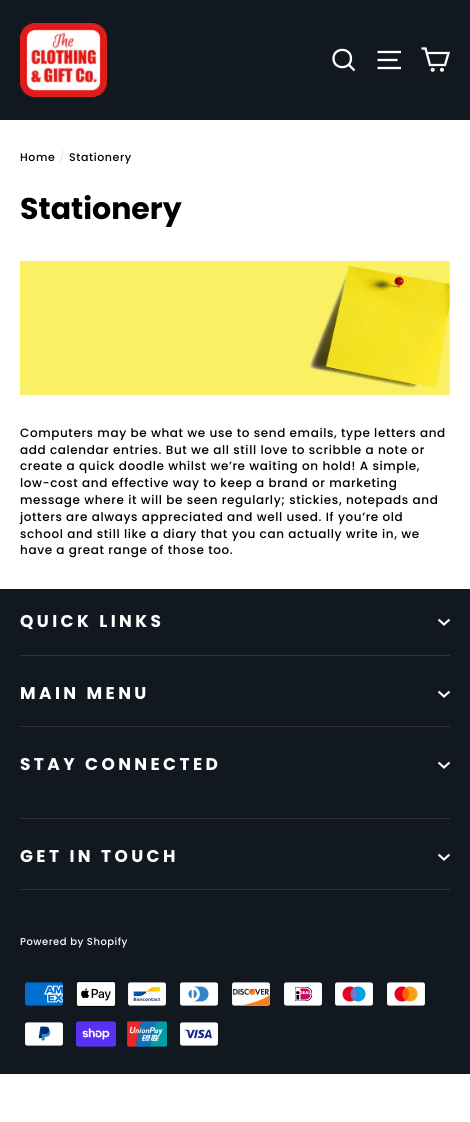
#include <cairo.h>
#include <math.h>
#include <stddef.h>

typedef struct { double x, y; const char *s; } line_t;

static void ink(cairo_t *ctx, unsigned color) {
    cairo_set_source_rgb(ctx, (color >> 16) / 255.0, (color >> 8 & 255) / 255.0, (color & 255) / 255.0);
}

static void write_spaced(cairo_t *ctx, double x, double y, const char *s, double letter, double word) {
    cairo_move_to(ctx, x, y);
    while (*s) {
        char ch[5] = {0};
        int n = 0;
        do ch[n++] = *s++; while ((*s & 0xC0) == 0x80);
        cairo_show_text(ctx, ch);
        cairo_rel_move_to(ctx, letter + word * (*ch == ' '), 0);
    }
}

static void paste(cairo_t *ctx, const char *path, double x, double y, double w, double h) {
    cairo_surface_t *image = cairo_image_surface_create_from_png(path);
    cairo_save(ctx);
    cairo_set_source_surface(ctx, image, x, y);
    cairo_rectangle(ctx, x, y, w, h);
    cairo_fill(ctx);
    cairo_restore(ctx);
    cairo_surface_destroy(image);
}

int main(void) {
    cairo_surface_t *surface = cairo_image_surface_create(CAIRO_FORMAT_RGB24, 470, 1122);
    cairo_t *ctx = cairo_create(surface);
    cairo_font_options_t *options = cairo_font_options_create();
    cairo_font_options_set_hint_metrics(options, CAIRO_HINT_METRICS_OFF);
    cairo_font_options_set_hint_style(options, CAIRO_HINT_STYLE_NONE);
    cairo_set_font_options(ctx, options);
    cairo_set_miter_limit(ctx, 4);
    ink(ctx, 0xFFFFFF);
    cairo_paint(ctx);
    ink(ctx, 0x11181F);
    cairo_rectangle(ctx, 0, 0, 470, 120);
    cairo_fill(ctx);
    paste(ctx, "media/1.png", 20, 23, 87, 74);
    cairo_new_path(ctx);
    cairo_move_to(ctx, 351, 58.5);
    cairo_curve_to(ctx, 351, 70, 333.5, 70, 333.5, 58.5);
    cairo_curve_to(ctx, 333.5, 47, 351, 47, 351, 58.5);
    cairo_close_path(ctx);
    cairo_move_to(ctx, 354.5, 70.5);
    cairo_line_to(ctx, 348.5, 64.5);
    ink(ctx, 0xFFFFFF);
    cairo_set_line_width(ctx, 2.3);
    cairo_stroke(ctx);
    cairo_new_path(ctx);
    cairo_move_to(ctx, 377.5, 52);
    cairo_line_to(ctx, 401, 52);
    cairo_move_to(ctx, 377.5, 60);
    cairo_line_to(ctx, 397.5, 60);
    cairo_move_to(ctx, 377.5, 68);
    cairo_line_to(ctx, 401, 68);
    cairo_stroke(ctx);
    cairo_new_path(ctx);
    cairo_move_to(ctx, 426.5, 53);
    cairo_line_to(ctx, 448.5, 53);
    cairo_line_to(ctx, 445, 65);
    cairo_line_to(ctx, 430, 65);
    cairo_line_to(ctx, 425.5, 48.5);
    cairo_line_to(ctx, 421.5, 48.5);
    cairo_stroke(ctx);
    cairo_arc(ctx, 432.7, 69.8, 0.9, 0, 2 * M_PI);
    cairo_stroke(ctx);
    cairo_arc(ctx, 442, 69.8, 0.9, 0, 2 * M_PI);
    cairo_stroke(ctx);
    cairo_select_font_face(ctx, "Poppins Medium", CAIRO_FONT_SLANT_NORMAL, CAIRO_FONT_WEIGHT_NORMAL);
    cairo_set_font_size(ctx, 11);
    ink(ctx, 0x000000);
    write_spaced(ctx, 20, 161, "Home", 0.6, 0);
    ink(ctx, 0xE8E8E1);
    write_spaced(ctx, 59, 161, "/", 0.6, 0);
    ink(ctx, 0x000000);
    write_spaced(ctx, 69, 161, "Stationery", 0.6, 0);
    cairo_select_font_face(ctx, "Poppins", CAIRO_FONT_SLANT_NORMAL, CAIRO_FONT_WEIGHT_BOLD);
    cairo_set_font_size(ctx, 30);
    cairo_move_to(ctx, 20, 219);
    cairo_show_text(ctx, "Stationery");
    paste(ctx, "media/2.png", 20, 260, 430, 136);
    cairo_select_font_face(ctx, "Poppins Medium", CAIRO_FONT_SLANT_NORMAL, CAIRO_FONT_WEIGHT_NORMAL);
    cairo_set_font_size(ctx, 12);
    {
        static const line_t items[] = {
            {20, 437, "Computers may be what we use to send emails, type letters and"},
            {20, 454, "add calendar entries. But we all still love to scribble a note or"},
            {20, 470, "create a quick doodle whilst we’re waiting on hold! A simple,"},
            {20, 487, "low-cost and effective way to keep a brand or marketing"},
            {20, 504, "message where it will be seen regularly; stickies, notepads and"},
            {20, 521, "jotters are always appreciated and well used. If you’re old"},
            {20, 538, "school and still like a diary that you can actually write in, we"},
            {20, 554, "have a great range of those too."},
        };
        for (size_t i = 0; i < sizeof items / sizeof *items; i++) {
            write_spaced(ctx, items[i].x, items[i].y, items[i].s, 0.6, 0);
        }
    }
    ink(ctx, 0x11181F);
    cairo_rectangle(ctx, 0, 589, 470, 485);
    cairo_fill(ctx);
    cairo_select_font_face(ctx, "Poppins", CAIRO_FONT_SLANT_NORMAL, CAIRO_FONT_WEIGHT_BOLD);
    cairo_set_font_size(ctx, 17);
    ink(ctx, 0xFFFFFF);
    write_spaced(ctx, 20, 627, "QUICK LINKS", 3.4, 0);
    cairo_new_path(ctx);
    cairo_move_to(ctx, 438.5, 619.5);
    cairo_line_to(ctx, 444, 624.5);
    cairo_line_to(ctx, 449.5, 619.5);
    cairo_set_line_width(ctx, 2.1);
    cairo_stroke(ctx);
    ink(ctx, 0x2E343A);
    cairo_rectangle(ctx, 20, 655, 430, 1);
    cairo_fill(ctx);
    ink(ctx, 0xFFFFFF);
    write_spaced(ctx, 20, 699, "MAIN MENU", 3.4, 0);
    cairo_new_path(ctx);
    cairo_move_to(ctx, 438.5, 691.5);
    cairo_line_to(ctx, 444, 696.5);
    cairo_line_to(ctx, 449.5, 691.5);
    cairo_stroke(ctx);
    ink(ctx, 0x2E343A);
    cairo_rectangle(ctx, 20, 726, 430, 1);
    cairo_fill(ctx);
    ink(ctx, 0xFFFFFF);
    write_spaced(ctx, 20, 770, "STAY CONNECTED", 3.4, 0);
    cairo_new_path(ctx);
    cairo_move_to(ctx, 438.5, 762.5);
    cairo_line_to(ctx, 444, 767.5);
    cairo_line_to(ctx, 449.5, 762.5);
    cairo_stroke(ctx);
    ink(ctx, 0x2E343A);
    cairo_rectangle(ctx, 20, 818, 430, 1);
    cairo_fill(ctx);
    ink(ctx, 0xFFFFFF);
    write_spaced(ctx, 20, 862, "GET IN TOUCH", 3.4, 0);
    cairo_new_path(ctx);
    cairo_move_to(ctx, 438.5, 854.5);
    cairo_line_to(ctx, 444, 859.5);
    cairo_line_to(ctx, 449.5, 854.5);
    cairo_stroke(ctx);
    ink(ctx, 0x2E343A);
    cairo_rectangle(ctx, 20, 889, 430, 1);
    cairo_fill(ctx);
    cairo_select_font_face(ctx, "Poppins Medium", CAIRO_FONT_SLANT_NORMAL, CAIRO_FONT_WEIGHT_NORMAL);
    cairo_set_font_size(ctx, 10);
    ink(ctx, 0xFFFFFF);
    write_spaced(ctx, 20, 945, "Powered by Shopify", 0.5, 0);
    paste(ctx, "media/3.png", 25, 982, 38, 24);
    paste(ctx, "media/4.png", 76, 981, 40, 26);
    paste(ctx, "media/5.png", 128, 982, 38, 24);
    paste(ctx, "media/6.png", 180, 982, 38, 24);
    paste(ctx, "media/7.png", 232, 982, 38, 24);
    paste(ctx, "media/8.png", 284, 982, 38, 24);
    paste(ctx, "media/9.png", 335, 982, 38, 24);
    paste(ctx, "media/10.png", 387, 982, 38, 24);
    paste(ctx, "media/11.png", 25, 1022, 38, 24);
    paste(ctx, "media/12.png", 76, 1021, 40, 26);
    paste(ctx, "media/13.png", 127, 1021, 40, 26);
    paste(ctx, "media/14.png", 180, 1022, 38, 24);
    cairo_surface_write_to_png(surface, "image.png");
    cairo_font_options_destroy(options);
    cairo_destroy(ctx);
    cairo_surface_destroy(surface);
    return 0;
}
